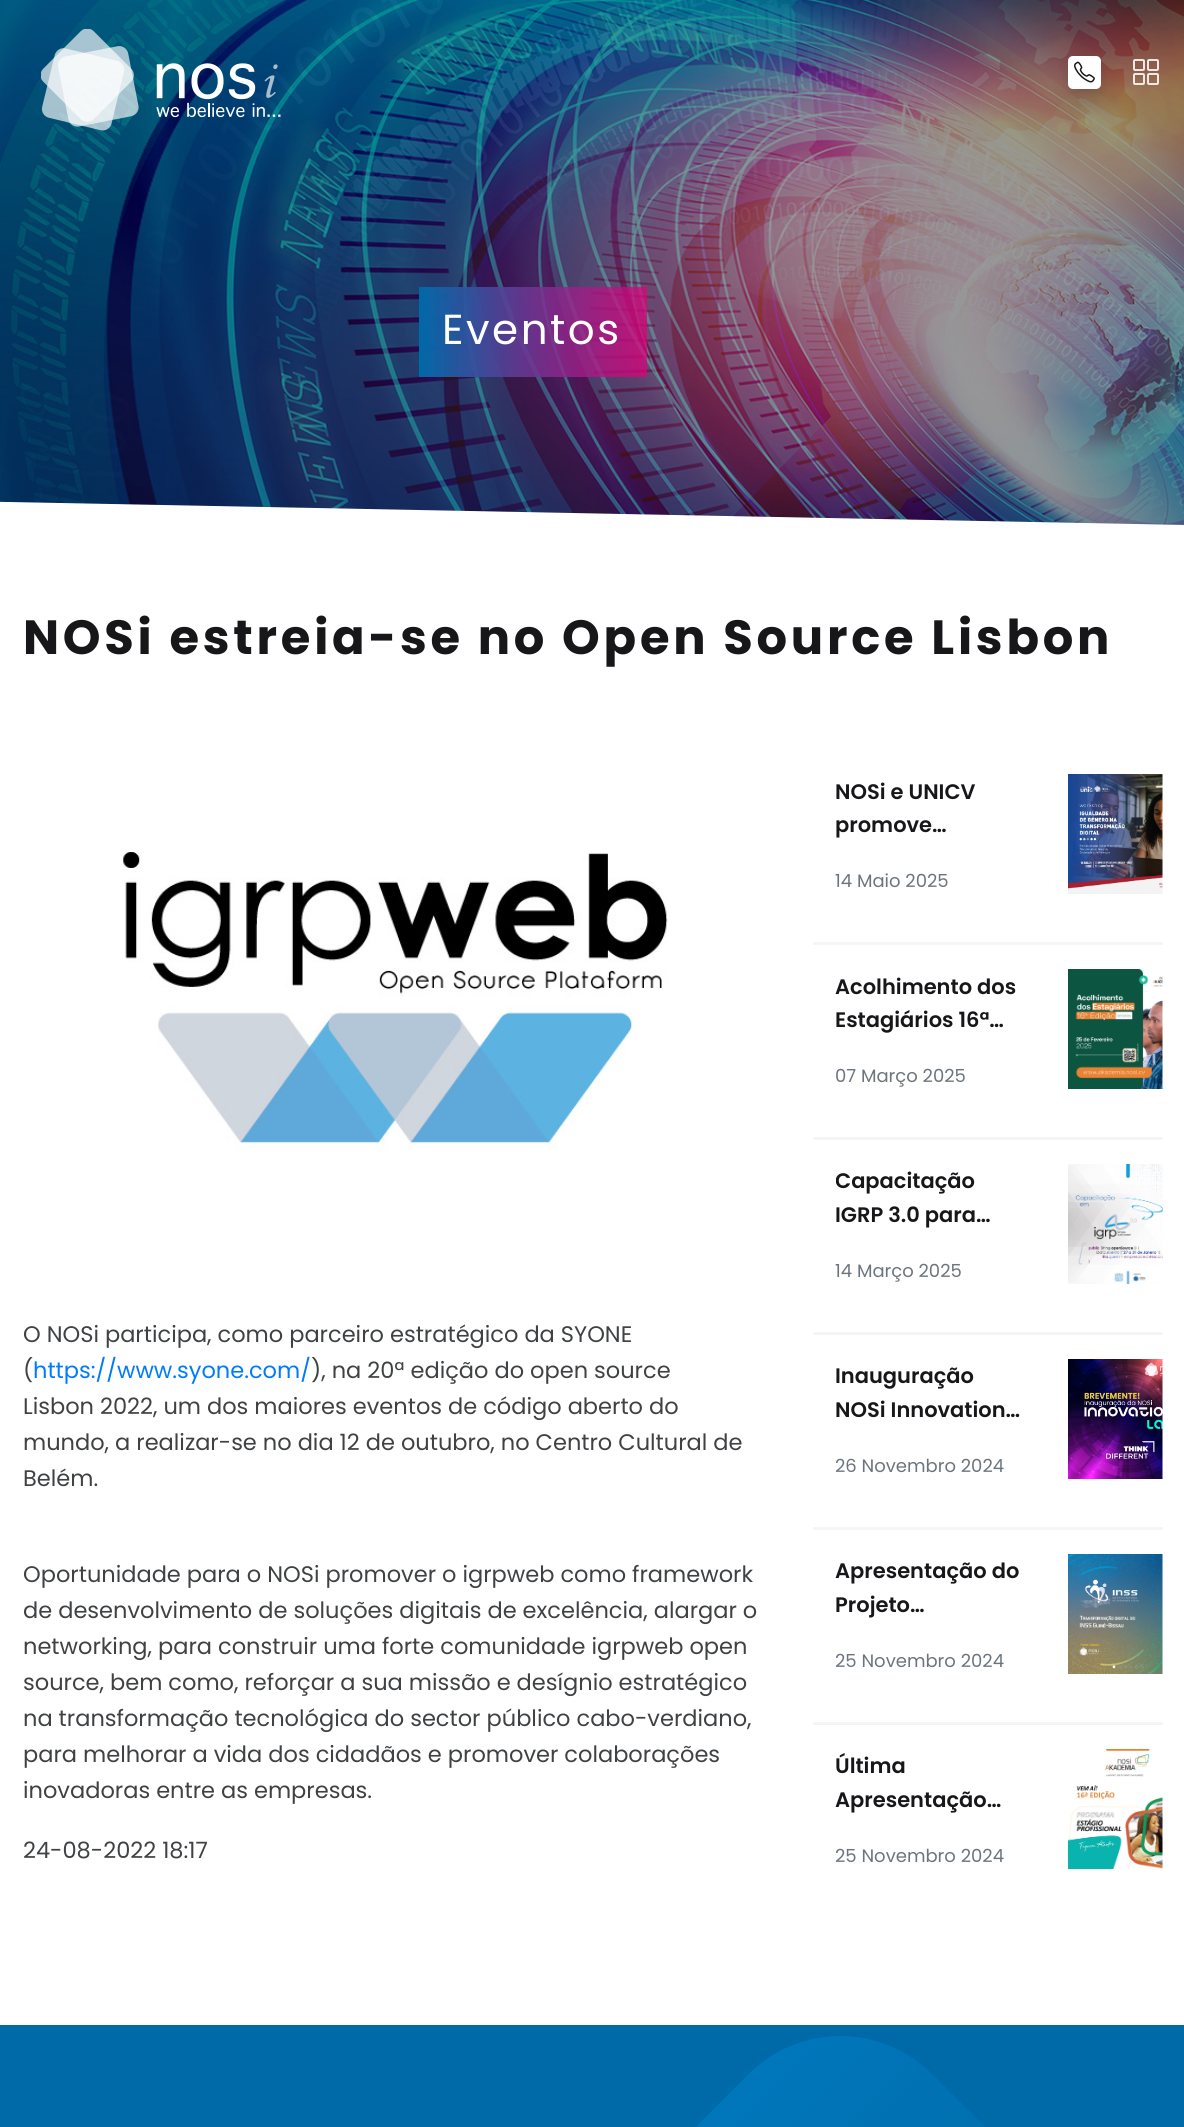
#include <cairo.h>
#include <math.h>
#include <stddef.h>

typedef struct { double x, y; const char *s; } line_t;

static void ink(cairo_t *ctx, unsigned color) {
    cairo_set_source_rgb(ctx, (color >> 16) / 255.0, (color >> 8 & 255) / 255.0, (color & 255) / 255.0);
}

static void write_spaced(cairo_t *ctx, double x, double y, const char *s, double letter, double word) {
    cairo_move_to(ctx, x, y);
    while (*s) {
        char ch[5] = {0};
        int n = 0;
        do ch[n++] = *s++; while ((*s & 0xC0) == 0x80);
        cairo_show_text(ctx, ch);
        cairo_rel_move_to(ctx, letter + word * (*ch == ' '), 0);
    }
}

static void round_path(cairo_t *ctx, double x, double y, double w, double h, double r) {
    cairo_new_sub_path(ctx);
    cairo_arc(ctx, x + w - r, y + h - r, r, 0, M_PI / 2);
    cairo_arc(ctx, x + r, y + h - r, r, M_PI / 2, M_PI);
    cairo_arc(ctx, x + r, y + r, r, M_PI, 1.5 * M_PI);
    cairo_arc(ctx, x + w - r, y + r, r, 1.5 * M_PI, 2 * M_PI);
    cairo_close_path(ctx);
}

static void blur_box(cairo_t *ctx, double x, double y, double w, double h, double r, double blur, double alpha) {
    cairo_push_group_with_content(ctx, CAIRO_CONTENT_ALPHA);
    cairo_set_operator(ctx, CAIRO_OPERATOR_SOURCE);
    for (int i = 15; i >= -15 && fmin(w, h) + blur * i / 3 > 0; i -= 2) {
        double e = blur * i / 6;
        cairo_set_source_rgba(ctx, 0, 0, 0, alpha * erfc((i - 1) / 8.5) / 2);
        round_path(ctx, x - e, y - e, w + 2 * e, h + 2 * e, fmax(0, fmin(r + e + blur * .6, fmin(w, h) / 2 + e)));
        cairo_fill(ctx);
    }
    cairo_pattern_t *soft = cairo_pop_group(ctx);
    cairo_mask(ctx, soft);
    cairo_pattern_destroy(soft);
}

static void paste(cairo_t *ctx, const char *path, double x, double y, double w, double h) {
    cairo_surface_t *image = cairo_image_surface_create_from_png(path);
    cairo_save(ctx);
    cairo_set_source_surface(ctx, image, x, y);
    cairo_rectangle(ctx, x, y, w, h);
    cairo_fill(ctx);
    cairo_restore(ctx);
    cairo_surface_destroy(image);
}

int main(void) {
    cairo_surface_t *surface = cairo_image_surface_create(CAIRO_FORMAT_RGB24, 1184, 2127);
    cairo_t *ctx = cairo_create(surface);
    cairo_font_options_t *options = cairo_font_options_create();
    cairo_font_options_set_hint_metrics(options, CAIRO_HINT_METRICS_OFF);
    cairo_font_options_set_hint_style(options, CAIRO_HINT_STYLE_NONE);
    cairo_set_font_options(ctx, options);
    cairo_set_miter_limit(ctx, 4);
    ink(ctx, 0xFFFFFF);
    cairo_paint(ctx);
    paste(ctx, "media/3.png", 0, 0, 1184, 525);
    paste(ctx, "media/1.png", 41, 29, 240, 102);
    ink(ctx, 0x000000);
    blur_box(ctx, 1068, 68, 33, 33, 5, 12, 0.15);
    ink(ctx, 0xFFFFFF);
    round_path(ctx, 1068, 56, 33, 33, 5);
    cairo_fill(ctx);
    paste(ctx, "media/2.png", 1074, 61, 21, 22);
    round_path(ctx, 1134, 60, 10, 10, 1);
    cairo_set_source_rgba(ctx, 1, 1, 1, 0.85);
    cairo_stroke(ctx);
    round_path(ctx, 1148, 60, 10, 10, 1);
    cairo_stroke(ctx);
    round_path(ctx, 1134, 74, 10, 10, 1);
    cairo_stroke(ctx);
    round_path(ctx, 1148, 74, 10, 10, 1);
    cairo_stroke(ctx);
    cairo_select_font_face(ctx, "Poppins", CAIRO_FONT_SLANT_NORMAL, CAIRO_FONT_WEIGHT_NORMAL);
    cairo_set_font_size(ctx, 42);
    ink(ctx, 0xFFFFFF);
    write_spaced(ctx, 442, 344, "Eventos", 2.5, 0);
    cairo_new_path(ctx);
    cairo_move_to(ctx, 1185, 525);
    cairo_line_to(ctx, -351, 525);
    cairo_line_to(ctx, -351, 495);
    cairo_close_path(ctx);
    cairo_fill(ctx);
    cairo_select_font_face(ctx, "Poppins", CAIRO_FONT_SLANT_NORMAL, CAIRO_FONT_WEIGHT_BOLD);
    cairo_set_font_size(ctx, 48);
    ink(ctx, 0x17171A);
    write_spaced(ctx, 23, 654, "NOSi estreia-se no Open Source Lisbon", 3.75, 0);
    paste(ctx, "media/4.png", 122, 852, 546, 298);
    cairo_select_font_face(ctx, "Poppins", CAIRO_FONT_SLANT_NORMAL, CAIRO_FONT_WEIGHT_NORMAL);
    cairo_set_font_size(ctx, 22.5);
    ink(ctx, 0x3F4143);
    cairo_move_to(ctx, 23, 1342);
    cairo_show_text(ctx, "O NOSi participa, como parceiro estratégico da SYONE");
    cairo_move_to(ctx, 23, 1378);
    cairo_show_text(ctx, "(");
    ink(ctx, 0x007BFF);
    cairo_move_to(ctx, 33, 1378);
    cairo_show_text(ctx, "https://www.syone.com/");
    ink(ctx, 0x3F4143);
    {
        static const line_t items[] = {
            {311, 1378, "), na 20ª edição do open source"},
            {23, 1414, "Lisbon 2022, um dos maiores eventos de código aberto do"},
            {23, 1450, "mundo, a realizar-se no dia 12 de outubro, no Centro Cultural de"},
            {23, 1486, "Belém."},
            {23, 1582, "Oportunidade para o NOSi promover o igrpweb como framework"},
            {23, 1618, "de desenvolvimento de soluções digitais de excelência, alargar o"},
            {23, 1654, "networking, para construir uma forte comunidade igrpweb open"},
            {23, 1690, "source, bem como, reforçar a sua missão e desígnio estratégico"},
            {23, 1726, "na transformação tecnológica do sector público cabo-verdiano,"},
            {23, 1762, "para melhorar a vida dos cidadãos e promover colaborações"},
            {23, 1798, "inovadoras entre as empresas."},
            {23, 1858, "24-08-2022 18:17"},
        };
        for (size_t i = 0; i < sizeof items / sizeof *items; i++) {
            cairo_move_to(ctx, items[i].x, items[i].y);
            cairo_show_text(ctx, items[i].s);
        }
    }
    ink(ctx, 0xF5F5F5);
    cairo_rectangle(ctx, 813, 942, 350, 3);
    cairo_fill(ctx);
    cairo_select_font_face(ctx, "Poppins SemiBold", CAIRO_FONT_SLANT_NORMAL, CAIRO_FONT_WEIGHT_NORMAL);
    cairo_set_font_size(ctx, 21);
    ink(ctx, 0x17171A);
    cairo_move_to(ctx, 835, 799);
    cairo_show_text(ctx, "NOSi e UNICV");
    cairo_move_to(ctx, 835, 832);
    cairo_show_text(ctx, "promove…");
    cairo_select_font_face(ctx, "Poppins", CAIRO_FONT_SLANT_NORMAL, CAIRO_FONT_WEIGHT_NORMAL);
    cairo_set_font_size(ctx, 18);
    ink(ctx, 0x6C757D);
    cairo_move_to(ctx, 835, 887);
    cairo_show_text(ctx, "14 Maio 2025");
    paste(ctx, "media/5.png", 1068, 774, 95, 120);
    ink(ctx, 0xF5F5F5);
    cairo_rectangle(ctx, 813, 1137, 350, 3);
    cairo_fill(ctx);
    cairo_select_font_face(ctx, "Poppins SemiBold", CAIRO_FONT_SLANT_NORMAL, CAIRO_FONT_WEIGHT_NORMAL);
    cairo_set_font_size(ctx, 21);
    ink(ctx, 0x17171A);
    cairo_move_to(ctx, 835, 994);
    cairo_show_text(ctx, "Acolhimento dos");
    cairo_move_to(ctx, 835, 1027);
    cairo_show_text(ctx, "Estagiários 16ª…");
    cairo_select_font_face(ctx, "Poppins", CAIRO_FONT_SLANT_NORMAL, CAIRO_FONT_WEIGHT_NORMAL);
    cairo_set_font_size(ctx, 18);
    ink(ctx, 0x6C757D);
    cairo_move_to(ctx, 835, 1082);
    cairo_show_text(ctx, "07 Março 2025");
    paste(ctx, "media/6.png", 1068, 969, 95, 120);
    ink(ctx, 0xF5F5F5);
    cairo_rectangle(ctx, 813, 1332, 350, 3);
    cairo_fill(ctx);
    cairo_save(ctx);
    cairo_rectangle(ctx, 836, 1164, 187, 68);
    cairo_clip(ctx);
    cairo_select_font_face(ctx, "Poppins SemiBold", CAIRO_FONT_SLANT_NORMAL, CAIRO_FONT_WEIGHT_NORMAL);
    cairo_set_font_size(ctx, 21);
    ink(ctx, 0x17171A);
    cairo_move_to(ctx, 835, 1188);
    cairo_show_text(ctx, "Capacitação");
    cairo_restore(ctx);
    cairo_select_font_face(ctx, "Poppins SemiBold", CAIRO_FONT_SLANT_NORMAL, CAIRO_FONT_WEIGHT_NORMAL);
    cairo_set_font_size(ctx, 21);
    ink(ctx, 0x17171A);
    cairo_move_to(ctx, 835, 1222);
    cairo_show_text(ctx, "IGRP 3.0 para…");
    cairo_select_font_face(ctx, "Poppins", CAIRO_FONT_SLANT_NORMAL, CAIRO_FONT_WEIGHT_NORMAL);
    cairo_set_font_size(ctx, 18);
    ink(ctx, 0x6C757D);
    cairo_move_to(ctx, 835, 1277);
    cairo_show_text(ctx, "14 Março 2025");
    paste(ctx, "media/7.png", 1068, 1164, 95, 120);
    ink(ctx, 0xF5F5F5);
    cairo_rectangle(ctx, 813, 1527, 350, 3);
    cairo_fill(ctx);
    cairo_select_font_face(ctx, "Poppins SemiBold", CAIRO_FONT_SLANT_NORMAL, CAIRO_FONT_WEIGHT_NORMAL);
    cairo_set_font_size(ctx, 21);
    ink(ctx, 0x17171A);
    cairo_move_to(ctx, 835, 1383);
    cairo_show_text(ctx, "Inauguração");
    cairo_move_to(ctx, 835, 1417);
    cairo_show_text(ctx, "NOSi Innovation…");
    cairo_select_font_face(ctx, "Poppins", CAIRO_FONT_SLANT_NORMAL, CAIRO_FONT_WEIGHT_NORMAL);
    cairo_set_font_size(ctx, 18);
    ink(ctx, 0x6C757D);
    cairo_move_to(ctx, 835, 1472);
    cairo_show_text(ctx, "26 Novembro 2024");
    paste(ctx, "media/8.png", 1068, 1359, 95, 120);
    ink(ctx, 0xF5F5F5);
    cairo_rectangle(ctx, 813, 1722, 350, 3);
    cairo_fill(ctx);
    cairo_select_font_face(ctx, "Poppins SemiBold", CAIRO_FONT_SLANT_NORMAL, CAIRO_FONT_WEIGHT_NORMAL);
    cairo_set_font_size(ctx, 21);
    ink(ctx, 0x17171A);
    cairo_move_to(ctx, 835, 1578);
    cairo_show_text(ctx, "Apresentação do");
    cairo_move_to(ctx, 835, 1612);
    cairo_show_text(ctx, "Projeto…");
    cairo_select_font_face(ctx, "Poppins", CAIRO_FONT_SLANT_NORMAL, CAIRO_FONT_WEIGHT_NORMAL);
    cairo_set_font_size(ctx, 18);
    ink(ctx, 0x6C757D);
    cairo_move_to(ctx, 835, 1667);
    cairo_show_text(ctx, "25 Novembro 2024");
    paste(ctx, "media/9.png", 1068, 1554, 95, 120);
    cairo_select_font_face(ctx, "Poppins SemiBold", CAIRO_FONT_SLANT_NORMAL, CAIRO_FONT_WEIGHT_NORMAL);
    cairo_set_font_size(ctx, 21);
    ink(ctx, 0x17171A);
    cairo_move_to(ctx, 835, 1773);
    cairo_show_text(ctx, "Última");
    cairo_move_to(ctx, 835, 1807);
    cairo_show_text(ctx, "Apresentação…");
    cairo_select_font_face(ctx, "Poppins", CAIRO_FONT_SLANT_NORMAL, CAIRO_FONT_WEIGHT_NORMAL);
    cairo_set_font_size(ctx, 18);
    ink(ctx, 0x6C757D);
    cairo_move_to(ctx, 835, 1862);
    cairo_show_text(ctx, "25 Novembro 2024");
    paste(ctx, "media/10.png", 1068, 1749, 95, 120);
    ink(ctx, 0x0069A8);
    cairo_rectangle(ctx, 0, 2025, 1184, 102);
    cairo_fill(ctx);
    paste(ctx, "media/11.png", 696, 2036, 289, 91);
    cairo_surface_write_to_png(surface, "image.png");
    cairo_font_options_destroy(options);
    cairo_destroy(ctx);
    cairo_surface_destroy(surface);
    return 0;
}
